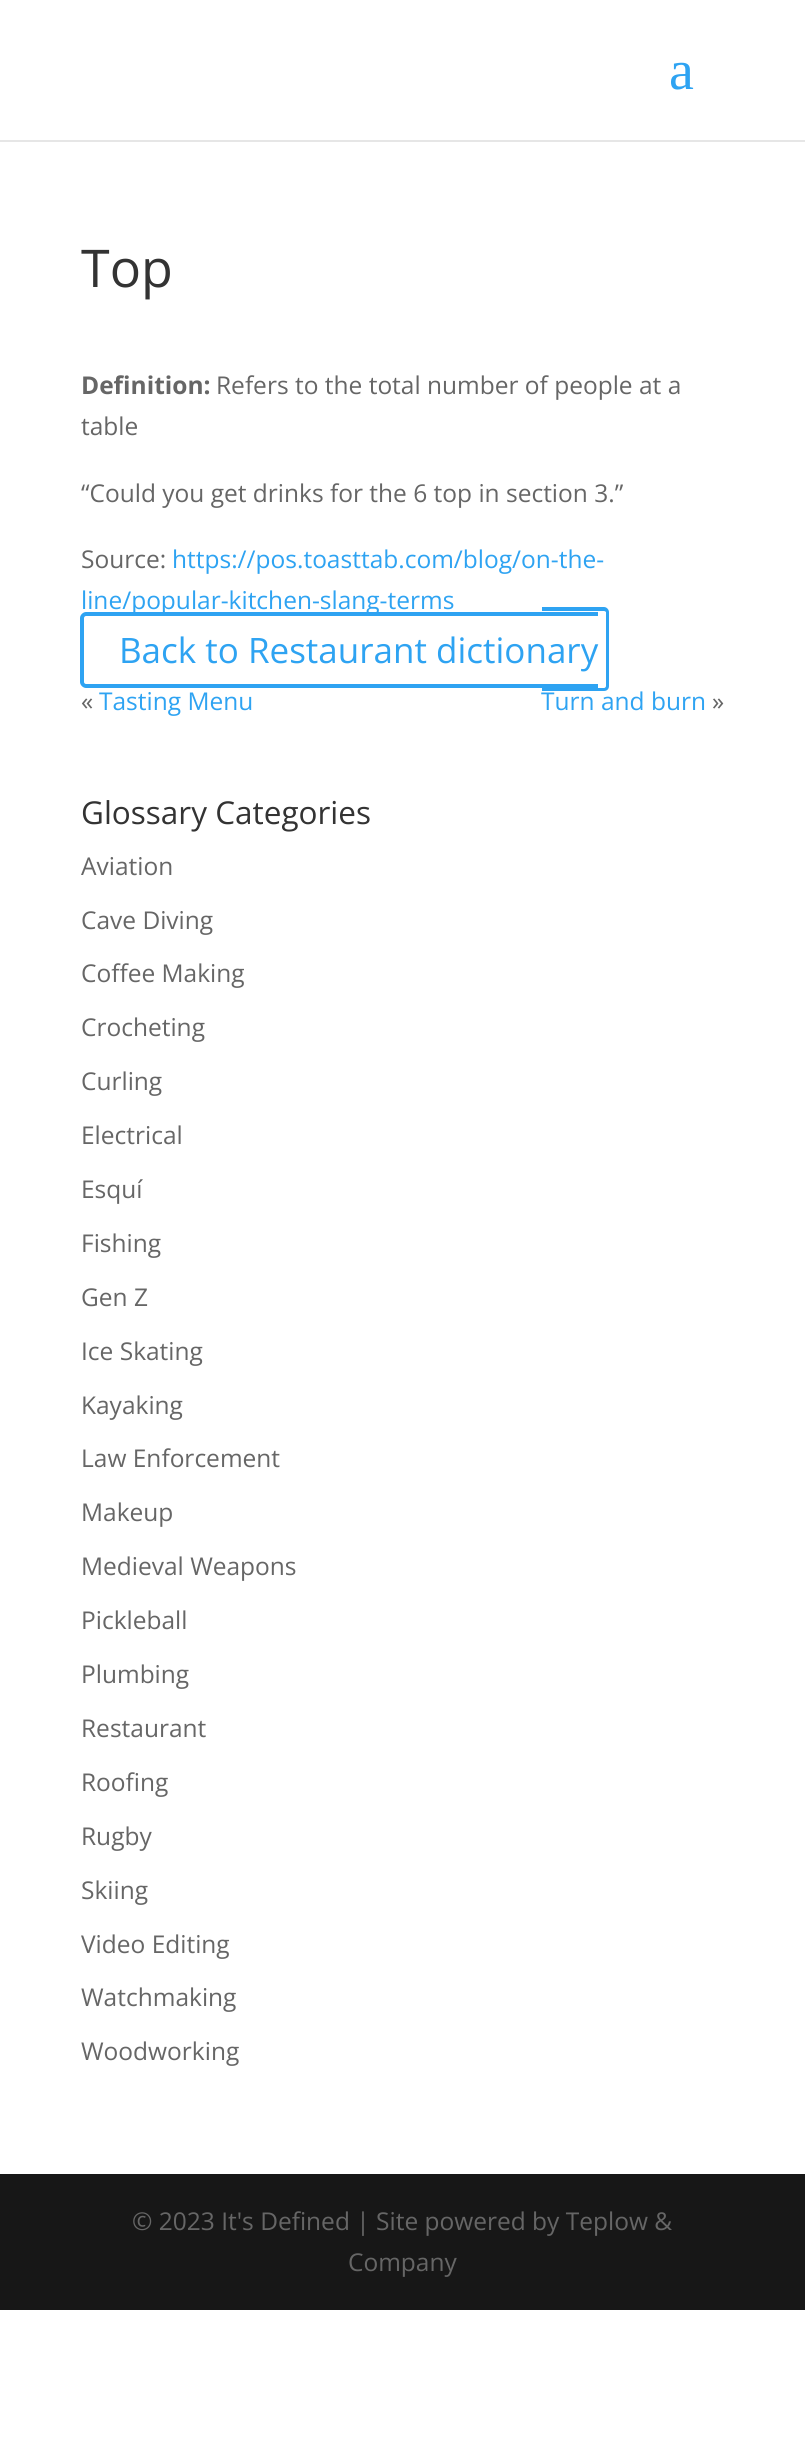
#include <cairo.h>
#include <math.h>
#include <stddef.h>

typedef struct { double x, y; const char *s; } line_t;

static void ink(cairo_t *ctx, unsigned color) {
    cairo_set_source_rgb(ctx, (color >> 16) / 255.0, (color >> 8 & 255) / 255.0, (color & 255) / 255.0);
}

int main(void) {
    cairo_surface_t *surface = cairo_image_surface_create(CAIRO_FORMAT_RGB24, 805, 2447);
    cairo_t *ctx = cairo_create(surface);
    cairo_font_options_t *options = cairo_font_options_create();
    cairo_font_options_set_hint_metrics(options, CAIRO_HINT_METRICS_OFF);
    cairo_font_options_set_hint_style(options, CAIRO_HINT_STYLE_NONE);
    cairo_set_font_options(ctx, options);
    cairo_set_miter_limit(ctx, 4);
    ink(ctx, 0xFFFFFF);
    cairo_paint(ctx);
    ink(ctx, 0xE6E6E6);
    cairo_rectangle(ctx, 0, 140, 805, 2);
    cairo_fill(ctx);
    cairo_select_font_face(ctx, "Liberation Serif", CAIRO_FONT_SLANT_NORMAL, CAIRO_FONT_WEIGHT_NORMAL);
    cairo_set_font_size(ctx, 56);
    ink(ctx, 0x2EA3F2);
    cairo_move_to(ctx, 669, 89);
    cairo_show_text(ctx, "a");
    cairo_select_font_face(ctx, "Open Sans", CAIRO_FONT_SLANT_NORMAL, CAIRO_FONT_WEIGHT_NORMAL);
    cairo_set_font_size(ctx, 52);
    ink(ctx, 0x333333);
    cairo_move_to(ctx, 81, 287);
    cairo_show_text(ctx, "Top");
    cairo_select_font_face(ctx, "Open Sans", CAIRO_FONT_SLANT_NORMAL, CAIRO_FONT_WEIGHT_BOLD);
    cairo_set_font_size(ctx, 24.5);
    ink(ctx, 0x666666);
    cairo_move_to(ctx, 81, 394);
    cairo_show_text(ctx, "Definition:");
    cairo_select_font_face(ctx, "Open Sans", CAIRO_FONT_SLANT_NORMAL, CAIRO_FONT_WEIGHT_NORMAL);
    {
        static const line_t items[] = {
            {216, 394, "Refers to the total number of people at a"},
            {81, 435, "table"},
            {81, 502, "“Could you get drinks for the 6 top in section 3.”"},
            {81, 568, "Source:"},
        };
        for (size_t i = 0; i < sizeof items / sizeof *items; i++) {
            cairo_move_to(ctx, items[i].x, items[i].y);
            cairo_show_text(ctx, items[i].s);
        }
    }
    ink(ctx, 0x2EA3F2);
    cairo_move_to(ctx, 172, 568);
    cairo_show_text(ctx, "https://pos.toasttab.com/blog/on-the-");
    cairo_move_to(ctx, 81, 609);
    cairo_show_text(ctx, "line/popular-kitchen-slang-terms");
    cairo_set_fill_rule(ctx, CAIRO_FILL_RULE_EVEN_ODD);
    cairo_new_path(ctx);
    cairo_move_to(ctx, 86, 612);
    cairo_line_to(ctx, 598, 612);
    cairo_line_to(ctx, 598, 688);
    cairo_line_to(ctx, 86, 688);
    cairo_curve_to(ctx, 83, 688, 80, 685, 80, 682);
    cairo_line_to(ctx, 80, 618);
    cairo_curve_to(ctx, 80, 615, 83, 612, 86, 612);
    cairo_close_path(ctx);
    cairo_move_to(ctx, 86, 616);
    cairo_line_to(ctx, 598, 616);
    cairo_line_to(ctx, 598, 684);
    cairo_line_to(ctx, 86, 684);
    cairo_curve_to(ctx, 85, 684, 84, 683, 84, 682);
    cairo_line_to(ctx, 84, 618);
    cairo_curve_to(ctx, 84, 617, 85, 616, 86, 616);
    cairo_close_path(ctx);
    cairo_fill(ctx);
    cairo_new_path(ctx);
    cairo_move_to(ctx, 542, 607);
    cairo_line_to(ctx, 604, 607);
    cairo_curve_to(ctx, 607, 607, 609, 610, 609, 612);
    cairo_line_to(ctx, 609, 686);
    cairo_curve_to(ctx, 609, 689, 607, 691, 604, 691);
    cairo_line_to(ctx, 542, 691);
    cairo_close_path(ctx);
    cairo_move_to(ctx, 542, 611);
    cairo_line_to(ctx, 604, 611);
    cairo_curve_to(ctx, 605, 611, 606, 612, 606, 612);
    cairo_line_to(ctx, 606, 686);
    cairo_curve_to(ctx, 606, 687, 605, 688, 604, 688);
    cairo_line_to(ctx, 542, 688);
    cairo_close_path(ctx);
    cairo_fill(ctx);
    cairo_set_font_size(ctx, 35);
    cairo_move_to(ctx, 119, 663);
    cairo_show_text(ctx, "Back to Restaurant dictionary");
    cairo_set_font_size(ctx, 24.5);
    ink(ctx, 0x666666);
    cairo_move_to(ctx, 81, 710);
    cairo_show_text(ctx, "«");
    ink(ctx, 0x2EA3F2);
    cairo_move_to(ctx, 99, 710);
    cairo_show_text(ctx, "Tasting Menu");
    cairo_move_to(ctx, 541, 710);
    cairo_show_text(ctx, "Turn and burn");
    ink(ctx, 0x666666);
    cairo_move_to(ctx, 712, 710);
    cairo_show_text(ctx, "»");
    cairo_set_font_size(ctx, 31.5);
    ink(ctx, 0x333333);
    cairo_move_to(ctx, 81, 824);
    cairo_show_text(ctx, "Glossary Categories");
    cairo_set_font_size(ctx, 24.5);
    ink(ctx, 0x666666);
    {
        static const line_t items[] = {
            {81, 875, "Aviation"},
            {81, 929, "Cave Diving"},
            {81, 982, "Coffee Making"},
            {81, 1036, "Crocheting"},
            {81, 1090, "Curling"},
            {81, 1144, "Electrical"},
            {81, 1198, "Esquí"},
            {81, 1252, "Fishing"},
            {81, 1306, "Gen Z"},
            {81, 1360, "Ice Skating"},
            {81, 1414, "Kayaking"},
            {81, 1467, "Law Enforcement"},
            {81, 1521, "Makeup"},
            {81, 1575, "Medieval Weapons"},
            {81, 1629, "Pickleball"},
            {81, 1683, "Plumbing"},
            {81, 1737, "Restaurant"},
            {81, 1791, "Roofing"},
            {81, 1845, "Rugby"},
            {81, 1899, "Skiing"},
            {81, 1953, "Video Editing"},
            {81, 2006, "Watchmaking"},
            {81, 2060, "Woodworking"},
        };
        for (size_t i = 0; i < sizeof items / sizeof *items; i++) {
            cairo_move_to(ctx, items[i].x, items[i].y);
            cairo_show_text(ctx, items[i].s);
        }
    }
    ink(ctx, 0x171717);
    cairo_rectangle(ctx, 0, 2174, 805, 136);
    cairo_fill(ctx);
    ink(ctx, 0x666666);
    cairo_move_to(ctx, 132, 2230);
    cairo_show_text(ctx, "© 2023 It's Defined | Site powered by Teplow &");
    cairo_move_to(ctx, 348, 2271);
    cairo_show_text(ctx, "Company");
    cairo_surface_write_to_png(surface, "image.png");
    cairo_font_options_destroy(options);
    cairo_destroy(ctx);
    cairo_surface_destroy(surface);
    return 0;
}
